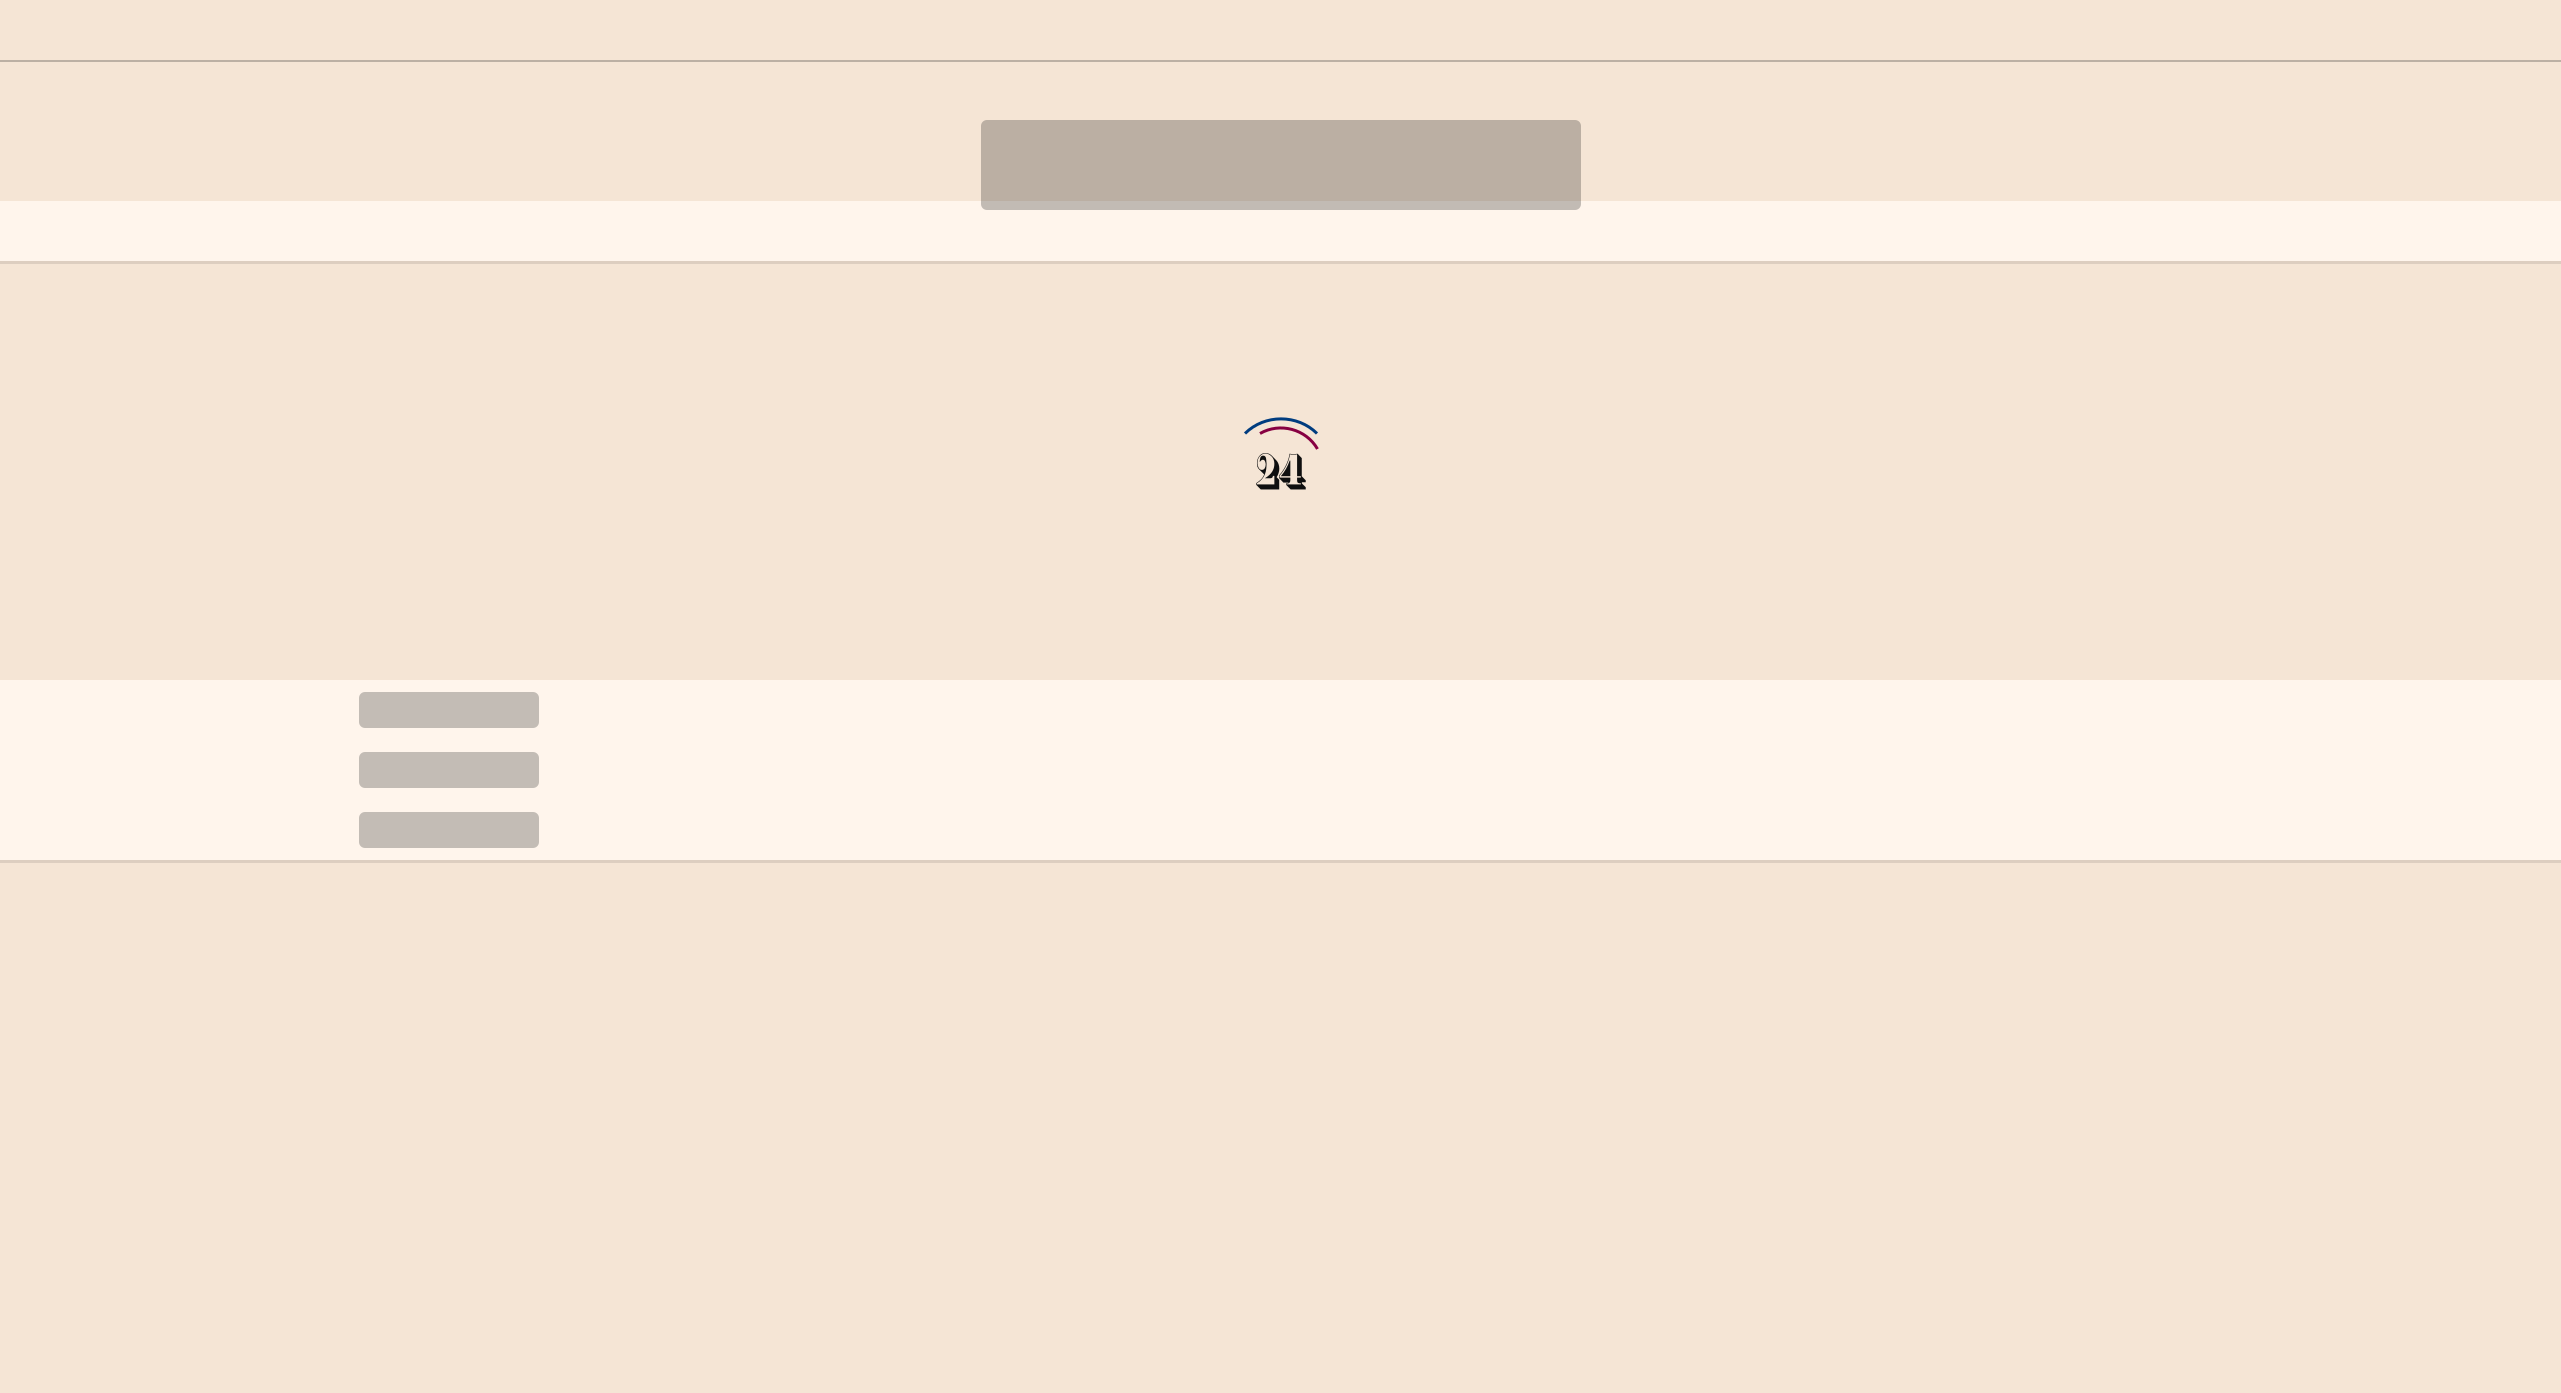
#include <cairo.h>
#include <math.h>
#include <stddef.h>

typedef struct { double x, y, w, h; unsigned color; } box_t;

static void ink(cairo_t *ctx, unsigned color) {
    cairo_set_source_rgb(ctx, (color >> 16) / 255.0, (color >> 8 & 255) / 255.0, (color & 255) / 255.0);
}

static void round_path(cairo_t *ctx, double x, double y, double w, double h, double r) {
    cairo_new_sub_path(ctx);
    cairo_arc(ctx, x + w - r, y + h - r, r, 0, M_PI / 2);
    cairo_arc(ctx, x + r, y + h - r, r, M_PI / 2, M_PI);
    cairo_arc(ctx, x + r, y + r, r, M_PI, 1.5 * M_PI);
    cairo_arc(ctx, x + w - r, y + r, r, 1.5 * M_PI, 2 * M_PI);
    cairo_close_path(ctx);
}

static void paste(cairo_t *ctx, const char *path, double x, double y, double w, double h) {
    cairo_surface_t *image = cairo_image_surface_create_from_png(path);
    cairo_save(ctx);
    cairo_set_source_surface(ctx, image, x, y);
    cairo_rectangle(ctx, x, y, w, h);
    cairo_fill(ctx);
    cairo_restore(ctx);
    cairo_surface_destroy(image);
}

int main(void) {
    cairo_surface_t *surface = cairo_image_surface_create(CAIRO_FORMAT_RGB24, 2561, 1393);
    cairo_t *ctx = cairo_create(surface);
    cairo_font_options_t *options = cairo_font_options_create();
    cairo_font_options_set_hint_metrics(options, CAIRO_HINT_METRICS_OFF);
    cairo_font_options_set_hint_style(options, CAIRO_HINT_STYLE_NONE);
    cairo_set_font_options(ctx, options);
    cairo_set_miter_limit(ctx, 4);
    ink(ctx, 0xF5E5D5);
    cairo_paint(ctx);
    {
        static const box_t items[] = {
            {0, 261, 2561, 3, 0xDDCEC0},
            {0, 201, 2561, 60, 0xFFF5EC},
            {0, 60, 2561, 2, 0xBCB0A4},
        };
        for (size_t i = 0; i < sizeof items / sizeof *items; i++) {
            ink(ctx, items[i].color);
            cairo_rectangle(ctx, items[i].x, items[i].y, items[i].w, items[i].h);
            cairo_fill(ctx);
        }
    }
    cairo_set_source_rgba(ctx, 0.059, 0.059, 0.059, 0.25);
    round_path(ctx, 981, 120, 600, 90, 6);
    cairo_fill(ctx);
    cairo_new_path(ctx);
    cairo_move_to(ctx, 1245, 433.5);
    cairo_curve_to(ctx, 1264.5, 414, 1297.5, 414, 1317, 433.5);
    ink(ctx, 0x003C7F);
    cairo_set_line_width(ctx, 3);
    cairo_stroke(ctx);
    cairo_new_path(ctx);
    cairo_move_to(ctx, 1260, 433.5);
    cairo_curve_to(ctx, 1280, 422, 1306, 429, 1317.5, 449);
    ink(ctx, 0x870042);
    cairo_stroke(ctx);
    paste(ctx, "media/1.png", 1256, 453, 50, 37);
    ink(ctx, 0xFFF5EC);
    cairo_rectangle(ctx, 0, 680, 2561, 180);
    cairo_fill(ctx);
    ink(ctx, 0xC3BCB5);
    round_path(ctx, 359, 692, 180, 36, 6);
    cairo_fill(ctx);
    round_path(ctx, 359, 752, 180, 36, 6);
    cairo_fill(ctx);
    ink(ctx, 0xDDCEC0);
    cairo_rectangle(ctx, 0, 860, 2561, 3);
    cairo_fill(ctx);
    ink(ctx, 0xC3BCB5);
    round_path(ctx, 359, 812, 180, 36, 6);
    cairo_fill(ctx);
    cairo_surface_write_to_png(surface, "image.png");
    cairo_font_options_destroy(options);
    cairo_destroy(ctx);
    cairo_surface_destroy(surface);
    return 0;
}
